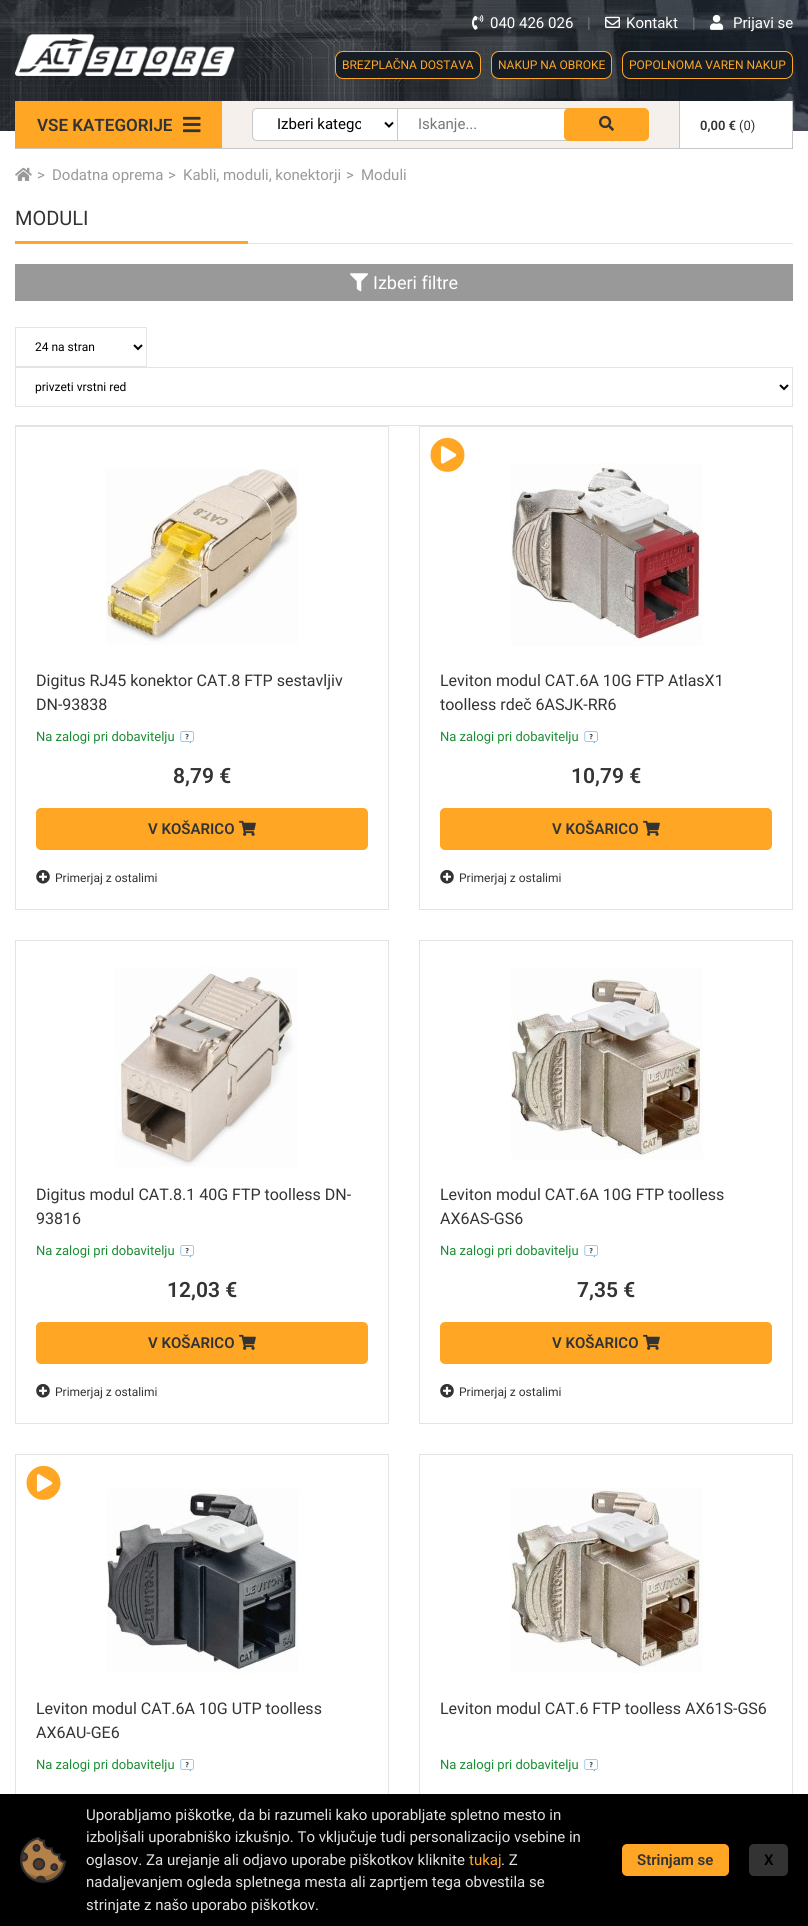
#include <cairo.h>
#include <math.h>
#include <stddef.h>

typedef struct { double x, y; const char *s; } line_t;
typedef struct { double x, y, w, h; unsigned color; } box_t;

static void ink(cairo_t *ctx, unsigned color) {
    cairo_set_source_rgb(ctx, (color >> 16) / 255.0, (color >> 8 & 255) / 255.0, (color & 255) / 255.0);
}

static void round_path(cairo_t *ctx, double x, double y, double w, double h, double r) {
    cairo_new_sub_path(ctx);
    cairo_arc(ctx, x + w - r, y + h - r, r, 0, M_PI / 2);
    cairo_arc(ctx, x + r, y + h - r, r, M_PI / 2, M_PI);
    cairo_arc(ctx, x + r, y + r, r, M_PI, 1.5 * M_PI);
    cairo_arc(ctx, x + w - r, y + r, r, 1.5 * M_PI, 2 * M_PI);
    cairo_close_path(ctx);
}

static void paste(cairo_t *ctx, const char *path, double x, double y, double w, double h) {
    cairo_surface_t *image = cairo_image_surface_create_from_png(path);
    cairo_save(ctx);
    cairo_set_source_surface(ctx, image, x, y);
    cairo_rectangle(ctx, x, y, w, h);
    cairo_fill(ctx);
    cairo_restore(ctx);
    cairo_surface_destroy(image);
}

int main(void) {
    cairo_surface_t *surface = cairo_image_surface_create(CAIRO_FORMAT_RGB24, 808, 1926);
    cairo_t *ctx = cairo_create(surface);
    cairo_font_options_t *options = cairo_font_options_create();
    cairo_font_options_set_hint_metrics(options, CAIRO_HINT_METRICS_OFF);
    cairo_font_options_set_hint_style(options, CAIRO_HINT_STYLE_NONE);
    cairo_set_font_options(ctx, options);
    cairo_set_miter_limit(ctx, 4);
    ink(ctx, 0xFFFFFF);
    cairo_paint(ctx);
    paste(ctx, "media/1.png", 0, 0, 808, 131);
    paste(ctx, "media/2.png", 15, 34, 220, 42);
    paste(ctx, "media/3.png", 472, 14, 12, 16);
    cairo_select_font_face(ctx, "Roboto", CAIRO_FONT_SLANT_NORMAL, CAIRO_FONT_WEIGHT_NORMAL);
    cairo_set_font_size(ctx, 15);
    ink(ctx, 0xFFFFFF);
    cairo_move_to(ctx, 490, 28);
    cairo_show_text(ctx, "040 426 026");
    ink(ctx, 0x787878);
    cairo_move_to(ctx, 587, 28);
    cairo_show_text(ctx, "|");
    paste(ctx, "media/4.png", 605, 16, 15, 12);
    ink(ctx, 0xFFFFFF);
    cairo_move_to(ctx, 626, 28);
    cairo_show_text(ctx, "Kontakt");
    ink(ctx, 0x787878);
    cairo_move_to(ctx, 692, 28);
    cairo_show_text(ctx, "|");
    paste(ctx, "media/5.png", 710, 14, 14, 16);
    ink(ctx, 0xFFFFFF);
    cairo_move_to(ctx, 733, 28);
    cairo_show_text(ctx, "Prijavi se");
    ink(ctx, 0x171D24);
    round_path(ctx, 335.5, 51.5, 145, 27, 7.5);
    cairo_fill_preserve(ctx);
    ink(ctx, 0xFFA624);
    cairo_set_line_width(ctx, 1);
    cairo_stroke(ctx);
    cairo_set_font_size(ctx, 12);
    cairo_move_to(ctx, 342, 69);
    cairo_show_text(ctx, "BREZPLAČNA DOSTAVA");
    ink(ctx, 0x171D24);
    round_path(ctx, 491.5, 51.5, 120, 27, 7.5);
    cairo_fill_preserve(ctx);
    ink(ctx, 0xFFA624);
    cairo_stroke(ctx);
    cairo_move_to(ctx, 498, 69);
    cairo_show_text(ctx, "NAKUP NA OBROKE");
    ink(ctx, 0x171D24);
    round_path(ctx, 622.5, 51.5, 170, 27, 7.5);
    cairo_fill_preserve(ctx);
    ink(ctx, 0xFFA624);
    cairo_stroke(ctx);
    cairo_move_to(ctx, 629, 69);
    cairo_show_text(ctx, "POPOLNOMA VAREN NAKUP");
    cairo_rectangle(ctx, 15, 101, 207, 47);
    cairo_fill(ctx);
    cairo_select_font_face(ctx, "Roboto SemiBold", CAIRO_FONT_SLANT_NORMAL, CAIRO_FONT_WEIGHT_NORMAL);
    cairo_set_font_size(ctx, 17);
    ink(ctx, 0x333333);
    cairo_move_to(ctx, 37, 131);
    cairo_show_text(ctx, "VSE KATEGORIJE");
    paste(ctx, "media/6.png", 183, 116, 18, 17);
    ink(ctx, 0xF5F0EC);
    cairo_rectangle(ctx, 222, 101, 457, 47);
    cairo_fill(ctx);
    ink(ctx, 0xC8C8C8);
    cairo_rectangle(ctx, 15, 148, 664, 1);
    cairo_fill(ctx);
    ink(ctx, 0xFFFFFF);
    cairo_new_path(ctx);
    cairo_move_to(ctx, 257, 108.5);
    cairo_line_to(ctx, 397.5, 108.5);
    cairo_line_to(ctx, 397.5, 140.5);
    cairo_line_to(ctx, 257, 140.5);
    cairo_curve_to(ctx, 254.5, 140.5, 252.5, 138.5, 252.5, 136);
    cairo_line_to(ctx, 252.5, 113);
    cairo_curve_to(ctx, 252.5, 110.5, 254.5, 108.5, 257, 108.5);
    cairo_close_path(ctx);
    cairo_fill_preserve(ctx);
    ink(ctx, 0xC8C8C8);
    cairo_stroke(ctx);
    cairo_new_path(ctx);
    cairo_move_to(ctx, 385, 122.5);
    cairo_line_to(ctx, 389, 126.5);
    cairo_line_to(ctx, 393, 122.5);
    ink(ctx, 0x000000);
    cairo_set_line_width(ctx, 2);
    cairo_stroke(ctx);
    cairo_save(ctx);
    cairo_rectangle(ctx, 277, 114, 84, 20);
    cairo_clip(ctx);
    cairo_select_font_face(ctx, "Roboto", CAIRO_FONT_SLANT_NORMAL, CAIRO_FONT_WEIGHT_NORMAL);
    cairo_set_font_size(ctx, 15);
    cairo_move_to(ctx, 277, 129);
    cairo_show_text(ctx, "Izberi katego");
    cairo_restore(ctx);
    {
        static const box_t items[] = {
            {398, 109, 168, 31, 0xFFFFFF},
            {398, 108, 176, 1, 0xC8C8C8},
            {398, 140, 176, 1, 0xC8C8C8},
        };
        for (size_t i = 0; i < sizeof items / sizeof *items; i++) {
            ink(ctx, items[i].color);
            cairo_rectangle(ctx, items[i].x, items[i].y, items[i].w, items[i].h);
            cairo_fill(ctx);
        }
    }
    cairo_select_font_face(ctx, "Roboto", CAIRO_FONT_SLANT_NORMAL, CAIRO_FONT_WEIGHT_NORMAL);
    cairo_set_font_size(ctx, 15);
    ink(ctx, 0x787878);
    cairo_move_to(ctx, 418, 129);
    cairo_show_text(ctx, "Iskanje...");
    ink(ctx, 0xFFA624);
    round_path(ctx, 564, 108, 85, 33, 5);
    cairo_fill(ctx);
    paste(ctx, "media/7.png", 599, 115, 15, 16);
    {
        static const box_t items[] = {
            {680, 101, 112, 30, 0xFFFFFF},
            {792, 101, 1, 48, 0xC8C8C8},
            {679, 148, 114, 1, 0xC8C8C8},
            {679, 101, 1, 48, 0xC8C8C8},
        };
        for (size_t i = 0; i < sizeof items / sizeof *items; i++) {
            ink(ctx, items[i].color);
            cairo_rectangle(ctx, items[i].x, items[i].y, items[i].w, items[i].h);
            cairo_fill(ctx);
        }
    }
    cairo_select_font_face(ctx, "Roboto SemiBold", CAIRO_FONT_SLANT_NORMAL, CAIRO_FONT_WEIGHT_NORMAL);
    cairo_set_font_size(ctx, 13);
    ink(ctx, 0x333333);
    cairo_move_to(ctx, 700, 130);
    cairo_show_text(ctx, "0,00 €");
    cairo_select_font_face(ctx, "Roboto", CAIRO_FONT_SLANT_NORMAL, CAIRO_FONT_WEIGHT_NORMAL);
    cairo_move_to(ctx, 739, 130);
    cairo_show_text(ctx, "(0)");
    paste(ctx, "media/8.png", 15, 167, 17, 14);
    cairo_set_font_size(ctx, 15);
    ink(ctx, 0x999999);
    {
        static const line_t items[] = {
            {37, 180, ">"},
            {52, 180, "Dodatna oprema"},
            {168, 180, ">"},
            {183, 180, "Kabli, moduli, konektorji"},
            {346, 180, ">"},
            {361, 180, "Moduli"},
        };
        for (size_t i = 0; i < sizeof items / sizeof *items; i++) {
            cairo_move_to(ctx, items[i].x, items[i].y);
            cairo_show_text(ctx, items[i].s);
        }
    }
    ink(ctx, 0xE4E4E4);
    cairo_rectangle(ctx, 248, 243, 545, 1);
    cairo_fill(ctx);
    cairo_set_font_size(ctx, 20);
    ink(ctx, 0x333333);
    cairo_move_to(ctx, 15, 225);
    cairo_show_text(ctx, "MODULI");
    ink(ctx, 0xFFA624);
    cairo_rectangle(ctx, 15, 241, 233, 3);
    cairo_fill(ctx);
    ink(ctx, 0x999999);
    cairo_rectangle(ctx, 15, 264, 778, 37);
    cairo_fill(ctx);
    paste(ctx, "media/9.png", 350, 273, 18, 19);
    cairo_set_font_size(ctx, 18);
    ink(ctx, 0xFFFFFF);
    cairo_move_to(ctx, 373, 289);
    cairo_show_text(ctx, "Izberi filtre");
    ink(ctx, 0xE4E4E4);
    cairo_rectangle(ctx, 15, 425, 778, 1);
    cairo_fill(ctx);
    cairo_rectangle(ctx, 15.5, 327.5, 131, 39);
    cairo_set_line_width(ctx, 1);
    cairo_stroke(ctx);
    cairo_new_path(ctx);
    cairo_move_to(ctx, 134, 345);
    cairo_line_to(ctx, 138, 349);
    cairo_line_to(ctx, 142, 345);
    ink(ctx, 0x000000);
    cairo_set_line_width(ctx, 2);
    cairo_stroke(ctx);
    cairo_set_font_size(ctx, 12);
    cairo_move_to(ctx, 35, 351);
    cairo_show_text(ctx, "24 na stran");
    cairo_rectangle(ctx, 15.5, 367.5, 777, 39);
    ink(ctx, 0xE4E4E4);
    cairo_set_line_width(ctx, 1);
    cairo_stroke(ctx);
    cairo_new_path(ctx);
    cairo_move_to(ctx, 780, 385);
    cairo_line_to(ctx, 784, 389);
    cairo_line_to(ctx, 788, 385);
    ink(ctx, 0x000000);
    cairo_set_line_width(ctx, 2);
    cairo_stroke(ctx);
    cairo_move_to(ctx, 35, 391);
    cairo_show_text(ctx, "privzeti vrstni red");
    cairo_rectangle(ctx, 15.5, 426.5, 373, 483);
    ink(ctx, 0xE4E4E4);
    cairo_set_line_width(ctx, 1);
    cairo_stroke(ctx);
    paste(ctx, "media/10.png", 106, 469, 193, 176);
    cairo_set_font_size(ctx, 16);
    ink(ctx, 0x333333);
    cairo_move_to(ctx, 36, 686);
    cairo_show_text(ctx, "Digitus RJ45 konektor CAT.8 FTP sestavljiv");
    cairo_move_to(ctx, 36, 710);
    cairo_show_text(ctx, "DN-93838");
    cairo_set_font_size(ctx, 13);
    ink(ctx, 0x1A8E33);
    cairo_move_to(ctx, 36, 741);
    cairo_show_text(ctx, "Na zalogi pri dobavitelju");
    paste(ctx, "media/11.png", 180, 731, 14, 13);
    cairo_select_font_face(ctx, "Roboto SemiBold", CAIRO_FONT_SLANT_NORMAL, CAIRO_FONT_WEIGHT_NORMAL);
    cairo_set_font_size(ctx, 21);
    ink(ctx, 0x333333);
    cairo_move_to(ctx, 173, 783);
    cairo_show_text(ctx, "8,79 €");
    ink(ctx, 0xFFA624);
    round_path(ctx, 36, 808, 332, 42, 5);
    cairo_fill(ctx);
    cairo_set_font_size(ctx, 15);
    ink(ctx, 0x333333);
    cairo_move_to(ctx, 148, 834);
    cairo_show_text(ctx, "V KOŠARICO");
    paste(ctx, "media/12.png", 239, 820, 17, 16);
    paste(ctx, "media/13.png", 36, 870, 14, 14);
    cairo_select_font_face(ctx, "Roboto", CAIRO_FONT_SLANT_NORMAL, CAIRO_FONT_WEIGHT_NORMAL);
    cairo_set_font_size(ctx, 12);
    cairo_move_to(ctx, 55, 882);
    cairo_show_text(ctx, "Primerjaj z ostalimi");
    cairo_rectangle(ctx, 419.5, 426.5, 373, 483);
    ink(ctx, 0xE4E4E4);
    cairo_stroke(ctx);
    paste(ctx, "media/14.png", 430, 437, 35, 35);
    paste(ctx, "media/15.png", 511, 463, 192, 183);
    cairo_set_font_size(ctx, 16);
    ink(ctx, 0x333333);
    cairo_move_to(ctx, 440, 686);
    cairo_show_text(ctx, "Leviton modul CAT.6A 10G FTP AtlasX1");
    cairo_move_to(ctx, 440, 710);
    cairo_show_text(ctx, "toolless rdeč 6ASJK-RR6");
    cairo_set_font_size(ctx, 13);
    ink(ctx, 0x1A8E33);
    cairo_move_to(ctx, 440, 741);
    cairo_show_text(ctx, "Na zalogi pri dobavitelju");
    paste(ctx, "media/11.png", 584, 731, 14, 13);
    cairo_select_font_face(ctx, "Roboto SemiBold", CAIRO_FONT_SLANT_NORMAL, CAIRO_FONT_WEIGHT_NORMAL);
    cairo_set_font_size(ctx, 21);
    ink(ctx, 0x333333);
    cairo_move_to(ctx, 571, 783);
    cairo_show_text(ctx, "10,79 €");
    ink(ctx, 0xFFA624);
    round_path(ctx, 440, 808, 332, 42, 5);
    cairo_fill(ctx);
    cairo_set_font_size(ctx, 15);
    ink(ctx, 0x333333);
    cairo_move_to(ctx, 552, 834);
    cairo_show_text(ctx, "V KOŠARICO");
    paste(ctx, "media/12.png", 643, 820, 17, 16);
    paste(ctx, "media/13.png", 440, 870, 14, 14);
    cairo_select_font_face(ctx, "Roboto", CAIRO_FONT_SLANT_NORMAL, CAIRO_FONT_WEIGHT_NORMAL);
    cairo_set_font_size(ctx, 12);
    cairo_move_to(ctx, 459, 882);
    cairo_show_text(ctx, "Primerjaj z ostalimi");
    cairo_rectangle(ctx, 15.5, 940.5, 373, 483);
    ink(ctx, 0xE4E4E4);
    cairo_stroke(ctx);
    paste(ctx, "media/16.png", 115, 967, 183, 200);
    cairo_set_font_size(ctx, 16);
    ink(ctx, 0x333333);
    cairo_move_to(ctx, 36, 1200);
    cairo_show_text(ctx, "Digitus modul CAT.8.1 40G FTP toolless DN-");
    cairo_move_to(ctx, 36, 1224);
    cairo_show_text(ctx, "93816");
    cairo_set_font_size(ctx, 13);
    ink(ctx, 0x1A8E33);
    cairo_move_to(ctx, 36, 1255);
    cairo_show_text(ctx, "Na zalogi pri dobavitelju");
    paste(ctx, "media/11.png", 180, 1245, 14, 13);
    cairo_select_font_face(ctx, "Roboto SemiBold", CAIRO_FONT_SLANT_NORMAL, CAIRO_FONT_WEIGHT_NORMAL);
    cairo_set_font_size(ctx, 21);
    ink(ctx, 0x333333);
    cairo_move_to(ctx, 167, 1297);
    cairo_show_text(ctx, "12,03 €");
    ink(ctx, 0xFFA624);
    round_path(ctx, 36, 1322, 332, 42, 5);
    cairo_fill(ctx);
    cairo_set_font_size(ctx, 15);
    ink(ctx, 0x333333);
    cairo_move_to(ctx, 148, 1348);
    cairo_show_text(ctx, "V KOŠARICO");
    paste(ctx, "media/12.png", 239, 1334, 17, 16);
    paste(ctx, "media/13.png", 36, 1384, 14, 14);
    cairo_select_font_face(ctx, "Roboto", CAIRO_FONT_SLANT_NORMAL, CAIRO_FONT_WEIGHT_NORMAL);
    cairo_set_font_size(ctx, 12);
    cairo_move_to(ctx, 55, 1396);
    cairo_show_text(ctx, "Primerjaj z ostalimi");
    cairo_rectangle(ctx, 419.5, 940.5, 373, 483);
    ink(ctx, 0xE4E4E4);
    cairo_stroke(ctx);
    paste(ctx, "media/17.png", 511, 967, 192, 192);
    cairo_set_font_size(ctx, 16);
    ink(ctx, 0x333333);
    cairo_move_to(ctx, 440, 1200);
    cairo_show_text(ctx, "Leviton modul CAT.6A 10G FTP toolless");
    cairo_move_to(ctx, 440, 1224);
    cairo_show_text(ctx, "AX6AS-GS6");
    cairo_set_font_size(ctx, 13);
    ink(ctx, 0x1A8E33);
    cairo_move_to(ctx, 440, 1255);
    cairo_show_text(ctx, "Na zalogi pri dobavitelju");
    paste(ctx, "media/11.png", 584, 1245, 14, 13);
    cairo_select_font_face(ctx, "Roboto SemiBold", CAIRO_FONT_SLANT_NORMAL, CAIRO_FONT_WEIGHT_NORMAL);
    cairo_set_font_size(ctx, 21);
    ink(ctx, 0x333333);
    cairo_move_to(ctx, 577, 1297);
    cairo_show_text(ctx, "7,35 €");
    ink(ctx, 0xFFA624);
    round_path(ctx, 440, 1322, 332, 42, 5);
    cairo_fill(ctx);
    cairo_set_font_size(ctx, 15);
    ink(ctx, 0x333333);
    cairo_move_to(ctx, 552, 1348);
    cairo_show_text(ctx, "V KOŠARICO");
    paste(ctx, "media/12.png", 643, 1334, 17, 16);
    paste(ctx, "media/13.png", 440, 1384, 14, 14);
    cairo_select_font_face(ctx, "Roboto", CAIRO_FONT_SLANT_NORMAL, CAIRO_FONT_WEIGHT_NORMAL);
    cairo_set_font_size(ctx, 12);
    cairo_move_to(ctx, 459, 1396);
    cairo_show_text(ctx, "Primerjaj z ostalimi");
    cairo_rectangle(ctx, 15.5, 1454.5, 373, 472);
    ink(ctx, 0xE4E4E4);
    cairo_stroke(ctx);
    paste(ctx, "media/14.png", 26, 1465, 35, 35);
    paste(ctx, "media/18.png", 107, 1489, 192, 184);
    cairo_set_font_size(ctx, 16);
    ink(ctx, 0x333333);
    cairo_move_to(ctx, 36, 1714);
    cairo_show_text(ctx, "Leviton modul CAT.6A 10G UTP toolless");
    cairo_move_to(ctx, 36, 1738);
    cairo_show_text(ctx, "AX6AU-GE6");
    cairo_set_font_size(ctx, 13);
    ink(ctx, 0x1A8E33);
    cairo_move_to(ctx, 36, 1769);
    cairo_show_text(ctx, "Na zalogi pri dobavitelju");
    paste(ctx, "media/11.png", 180, 1759, 14, 13);
    cairo_rectangle(ctx, 419.5, 1454.5, 373, 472);
    ink(ctx, 0xE4E4E4);
    cairo_stroke(ctx);
    paste(ctx, "media/19.png", 511, 1488, 192, 185);
    cairo_set_font_size(ctx, 16);
    ink(ctx, 0x333333);
    cairo_move_to(ctx, 440, 1714);
    cairo_show_text(ctx, "Leviton modul CAT.6 FTP toolless AX61S-GS6");
    cairo_set_font_size(ctx, 13);
    ink(ctx, 0x1A8E33);
    cairo_move_to(ctx, 440, 1769);
    cairo_show_text(ctx, "Na zalogi pri dobavitelju");
    paste(ctx, "media/11.png", 584, 1759, 14, 13);
    ink(ctx, 0x000000);
    cairo_rectangle(ctx, 0, 1794, 808, 132);
    cairo_fill(ctx);
    paste(ctx, "media/20.png", 20, 1837, 46, 46);
    cairo_set_font_size(ctx, 15);
    ink(ctx, 0xE2E2E2);
    {
        static const line_t items[] = {
            {86, 1820, "Uporabljamo piškotke, da bi razumeli kako uporabljate spletno mesto in"},
            {86, 1842, "izboljšali uporabniško izkušnjo. To vključuje tudi personalizacijo vsebine in"},
            {86, 1865, "oglasov. Za urejanje ali odjavo uporabe piškotkov kliknite"},
        };
        for (size_t i = 0; i < sizeof items / sizeof *items; i++) {
            cairo_move_to(ctx, items[i].x, items[i].y);
            cairo_show_text(ctx, items[i].s);
        }
    }
    ink(ctx, 0xFFA624);
    cairo_move_to(ctx, 469, 1865);
    cairo_show_text(ctx, "tukaj");
    ink(ctx, 0xE2E2E2);
    {
        static const line_t items[] = {
            {501, 1865, ". Z"},
            {86, 1887, "nadaljevanjem ogleda spletnega mesta ali zaprtjem tega obvestila se"},
            {86, 1910, "strinjate z našo uporabo piškotkov."},
        };
        for (size_t i = 0; i < sizeof items / sizeof *items; i++) {
            cairo_move_to(ctx, items[i].x, items[i].y);
            cairo_show_text(ctx, items[i].s);
        }
    }
    ink(ctx, 0xFFA624);
    round_path(ctx, 622, 1844, 107, 32, 5);
    cairo_fill(ctx);
    cairo_select_font_face(ctx, "Roboto SemiBold", CAIRO_FONT_SLANT_NORMAL, CAIRO_FONT_WEIGHT_NORMAL);
    ink(ctx, 0x333333);
    cairo_move_to(ctx, 637, 1865);
    cairo_show_text(ctx, "Strinjam se");
    round_path(ctx, 749, 1844, 39, 32, 5);
    cairo_fill(ctx);
    ink(ctx, 0x000000);
    cairo_move_to(ctx, 764, 1865);
    cairo_show_text(ctx, "X");
    cairo_surface_write_to_png(surface, "image.png");
    cairo_font_options_destroy(options);
    cairo_destroy(ctx);
    cairo_surface_destroy(surface);
    return 0;
}
